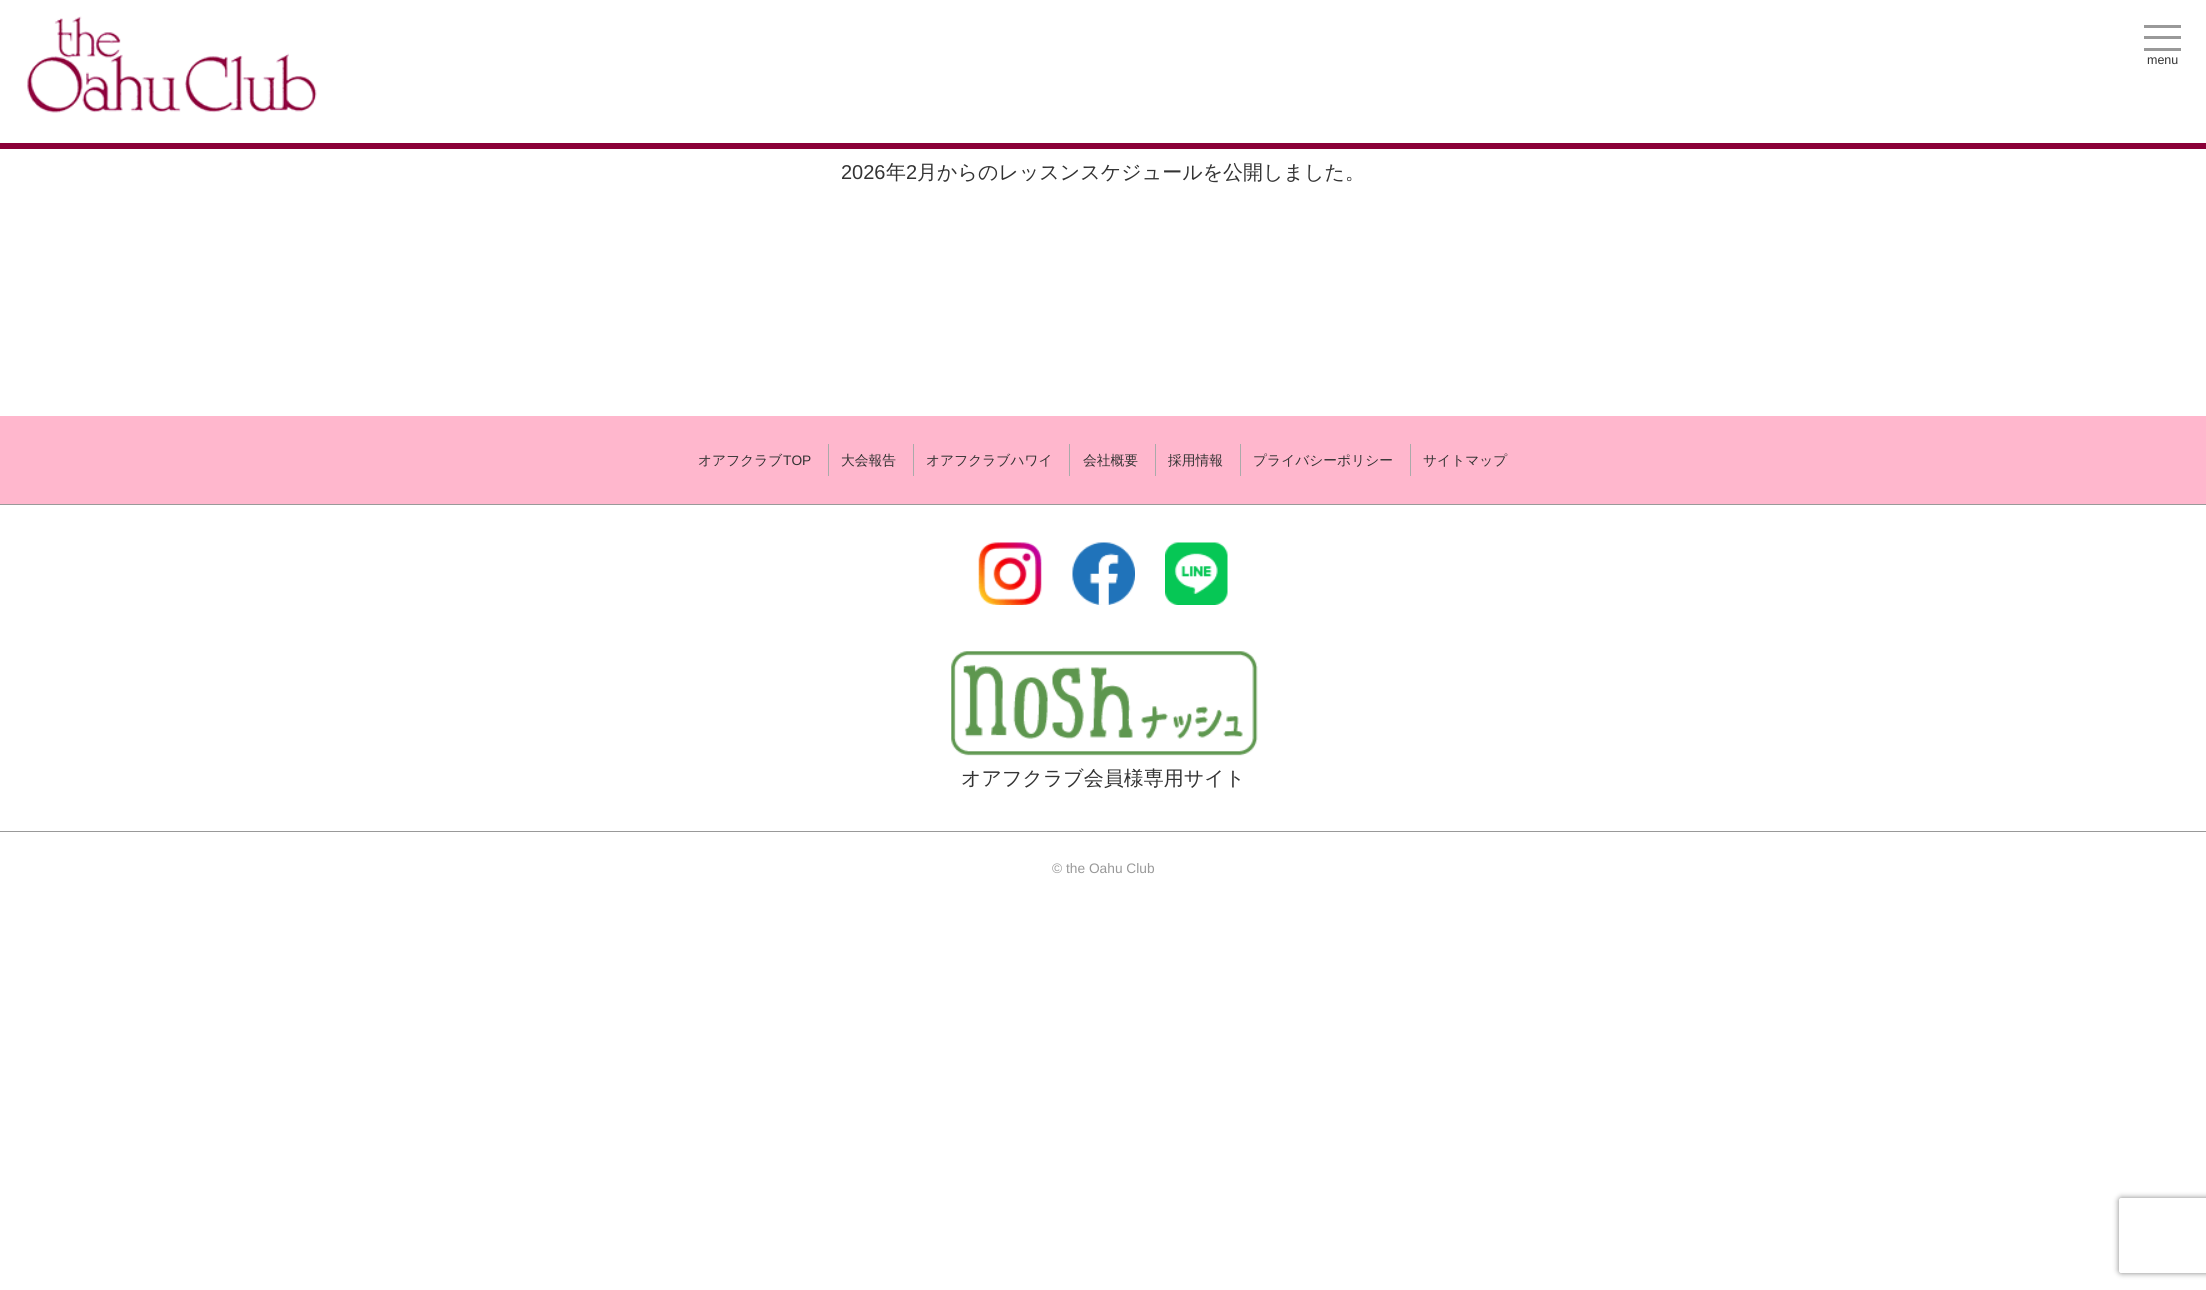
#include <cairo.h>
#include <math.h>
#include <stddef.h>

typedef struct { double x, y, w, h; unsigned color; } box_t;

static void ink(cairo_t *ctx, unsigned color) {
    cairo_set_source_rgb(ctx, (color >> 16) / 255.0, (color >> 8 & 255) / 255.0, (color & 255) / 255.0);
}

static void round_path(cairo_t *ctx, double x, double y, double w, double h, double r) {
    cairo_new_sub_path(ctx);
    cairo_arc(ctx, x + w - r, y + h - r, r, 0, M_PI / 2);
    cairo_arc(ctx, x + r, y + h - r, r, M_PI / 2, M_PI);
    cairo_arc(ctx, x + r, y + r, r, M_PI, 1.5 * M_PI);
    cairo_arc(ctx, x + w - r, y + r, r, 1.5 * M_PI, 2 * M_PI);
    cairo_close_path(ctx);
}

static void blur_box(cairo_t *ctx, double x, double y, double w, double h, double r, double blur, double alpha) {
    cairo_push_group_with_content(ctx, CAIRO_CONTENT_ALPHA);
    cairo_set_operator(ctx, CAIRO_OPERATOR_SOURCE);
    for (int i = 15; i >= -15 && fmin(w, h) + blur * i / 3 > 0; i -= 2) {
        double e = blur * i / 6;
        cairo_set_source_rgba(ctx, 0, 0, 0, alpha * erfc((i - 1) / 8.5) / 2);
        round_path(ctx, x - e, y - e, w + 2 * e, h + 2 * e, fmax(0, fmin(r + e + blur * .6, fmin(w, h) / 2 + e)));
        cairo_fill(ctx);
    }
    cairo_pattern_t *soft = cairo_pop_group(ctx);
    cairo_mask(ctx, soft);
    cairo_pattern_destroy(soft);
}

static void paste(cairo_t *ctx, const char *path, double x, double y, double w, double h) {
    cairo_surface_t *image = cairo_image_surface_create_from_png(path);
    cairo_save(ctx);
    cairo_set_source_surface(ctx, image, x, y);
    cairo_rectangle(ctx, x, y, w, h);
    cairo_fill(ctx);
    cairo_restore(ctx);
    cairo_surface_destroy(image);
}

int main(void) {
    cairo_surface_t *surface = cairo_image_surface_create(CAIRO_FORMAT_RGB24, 2206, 1290);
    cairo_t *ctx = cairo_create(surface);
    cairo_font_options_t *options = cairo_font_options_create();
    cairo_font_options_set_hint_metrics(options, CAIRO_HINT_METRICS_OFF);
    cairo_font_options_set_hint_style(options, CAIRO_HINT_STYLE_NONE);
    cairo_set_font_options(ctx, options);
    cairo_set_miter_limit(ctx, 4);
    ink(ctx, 0xFFFFFF);
    cairo_paint(ctx);
    ink(ctx, 0x8B0038);
    cairo_rectangle(ctx, 0, 143, 2206, 6);
    cairo_fill(ctx);
    paste(ctx, "media/1.png", 27, 16, 290, 97);
    {
        static const box_t items[] = {
            {2144, 25, 37, 3, 0x999999},
            {2144, 36, 37, 3, 0x999999},
            {2144, 48, 37, 3, 0x999999},
        };
        for (size_t i = 0; i < sizeof items / sizeof *items; i++) {
            ink(ctx, items[i].color);
            cairo_rectangle(ctx, items[i].x, items[i].y, items[i].w, items[i].h);
            cairo_fill(ctx);
        }
    }
    cairo_select_font_face(ctx, "Liberation Sans", CAIRO_FONT_SLANT_NORMAL, CAIRO_FONT_WEIGHT_NORMAL);
    cairo_set_font_size(ctx, 12.5);
    ink(ctx, 0x333333);
    cairo_move_to(ctx, 2147, 64);
    cairo_show_text(ctx, "menu");
    cairo_set_font_size(ctx, 20);
    cairo_move_to(ctx, 841, 179);
    cairo_show_text(ctx, "2026");
    cairo_select_font_face(ctx, "WenQuanYi Zen Hei Medium", CAIRO_FONT_SLANT_NORMAL, CAIRO_FONT_WEIGHT_NORMAL);
    cairo_move_to(ctx, 886, 179);
    cairo_show_text(ctx, "年");
    cairo_select_font_face(ctx, "Liberation Sans", CAIRO_FONT_SLANT_NORMAL, CAIRO_FONT_WEIGHT_NORMAL);
    cairo_move_to(ctx, 906, 179);
    cairo_show_text(ctx, "2");
    cairo_select_font_face(ctx, "WenQuanYi Zen Hei Medium", CAIRO_FONT_SLANT_NORMAL, CAIRO_FONT_WEIGHT_NORMAL);
    cairo_move_to(ctx, 917, 179);
    cairo_show_text(ctx, "月からのレッスンスケジュールを公開しました。");
    ink(ctx, 0xFFB7CD);
    cairo_rectangle(ctx, 0, 416, 2206, 88);
    cairo_fill(ctx);
    cairo_set_font_size(ctx, 13.75);
    ink(ctx, 0x333333);
    cairo_move_to(ctx, 698, 465);
    cairo_show_text(ctx, "オアフクラブ");
    cairo_select_font_face(ctx, "Liberation Sans", CAIRO_FONT_SLANT_NORMAL, CAIRO_FONT_WEIGHT_NORMAL);
    cairo_move_to(ctx, 783, 465);
    cairo_show_text(ctx, "TOP");
    ink(ctx, 0xAAAAAA);
    cairo_rectangle(ctx, 828, 444, 1, 32);
    cairo_fill(ctx);
    cairo_select_font_face(ctx, "WenQuanYi Zen Hei Medium", CAIRO_FONT_SLANT_NORMAL, CAIRO_FONT_WEIGHT_NORMAL);
    ink(ctx, 0x333333);
    cairo_move_to(ctx, 841, 465);
    cairo_show_text(ctx, "大会報告");
    ink(ctx, 0xAAAAAA);
    cairo_rectangle(ctx, 913, 444, 1, 32);
    cairo_fill(ctx);
    ink(ctx, 0x333333);
    cairo_move_to(ctx, 926, 465);
    cairo_show_text(ctx, "オアフクラブハワイ");
    ink(ctx, 0xAAAAAA);
    cairo_rectangle(ctx, 1069, 444, 1, 32);
    cairo_fill(ctx);
    ink(ctx, 0x333333);
    cairo_move_to(ctx, 1083, 465);
    cairo_show_text(ctx, "会社概要");
    ink(ctx, 0xAAAAAA);
    cairo_rectangle(ctx, 1155, 444, 1, 32);
    cairo_fill(ctx);
    ink(ctx, 0x333333);
    cairo_move_to(ctx, 1168, 465);
    cairo_show_text(ctx, "採用情報");
    ink(ctx, 0xAAAAAA);
    cairo_rectangle(ctx, 1240, 444, 1, 32);
    cairo_fill(ctx);
    ink(ctx, 0x333333);
    cairo_move_to(ctx, 1253, 465);
    cairo_show_text(ctx, "プライバシーポリシー");
    ink(ctx, 0xAAAAAA);
    cairo_rectangle(ctx, 1410, 444, 1, 32);
    cairo_fill(ctx);
    ink(ctx, 0x333333);
    cairo_move_to(ctx, 1423, 465);
    cairo_show_text(ctx, "サイトマップ");
    ink(ctx, 0x999999);
    cairo_rectangle(ctx, 0, 504, 2206, 1);
    cairo_fill(ctx);
    paste(ctx, "media/2.png", 978, 542, 64, 63);
    paste(ctx, "media/3.png", 1072, 542, 63, 63);
    paste(ctx, "media/4.png", 1165, 542, 63, 63);
    paste(ctx, "media/5.png", 951, 651, 307, 105);
    cairo_set_font_size(ctx, 20);
    ink(ctx, 0x333333);
    cairo_move_to(ctx, 961, 785);
    cairo_show_text(ctx, "オアフクラブ会員様専用サイト");
    ink(ctx, 0x999999);
    cairo_rectangle(ctx, 0, 831, 2206, 1);
    cairo_fill(ctx);
    cairo_select_font_face(ctx, "Liberation Sans", CAIRO_FONT_SLANT_NORMAL, CAIRO_FONT_WEIGHT_NORMAL);
    cairo_set_font_size(ctx, 13.75);
    cairo_move_to(ctx, 1052, 873);
    cairo_show_text(ctx, "© the Oahu Club");
    cairo_save(ctx);
    cairo_set_fill_rule(ctx, CAIRO_FILL_RULE_EVEN_ODD);
    cairo_new_path(ctx);
    cairo_move_to(ctx, 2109, 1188);
    cairo_line_to(ctx, 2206, 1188);
    cairo_line_to(ctx, 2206, 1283);
    cairo_line_to(ctx, 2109, 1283);
    cairo_close_path(ctx);
    cairo_move_to(ctx, 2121.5, 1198);
    cairo_line_to(ctx, 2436.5, 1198);
    cairo_curve_to(ctx, 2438, 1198, 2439, 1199, 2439, 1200.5);
    cairo_line_to(ctx, 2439, 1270.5);
    cairo_curve_to(ctx, 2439, 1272, 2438, 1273, 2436.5, 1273);
    cairo_line_to(ctx, 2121.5, 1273);
    cairo_curve_to(ctx, 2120, 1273, 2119, 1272, 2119, 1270.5);
    cairo_line_to(ctx, 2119, 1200.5);
    cairo_curve_to(ctx, 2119, 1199, 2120, 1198, 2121.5, 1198);
    cairo_close_path(ctx);
    cairo_clip(ctx);
    ink(ctx, 0x808080);
    blur_box(ctx, 2119, 1198, 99, 75, 2.5, 3, 1);
    cairo_restore(ctx);
    cairo_surface_write_to_png(surface, "image.png");
    cairo_font_options_destroy(options);
    cairo_destroy(ctx);
    cairo_surface_destroy(surface);
    return 0;
}
